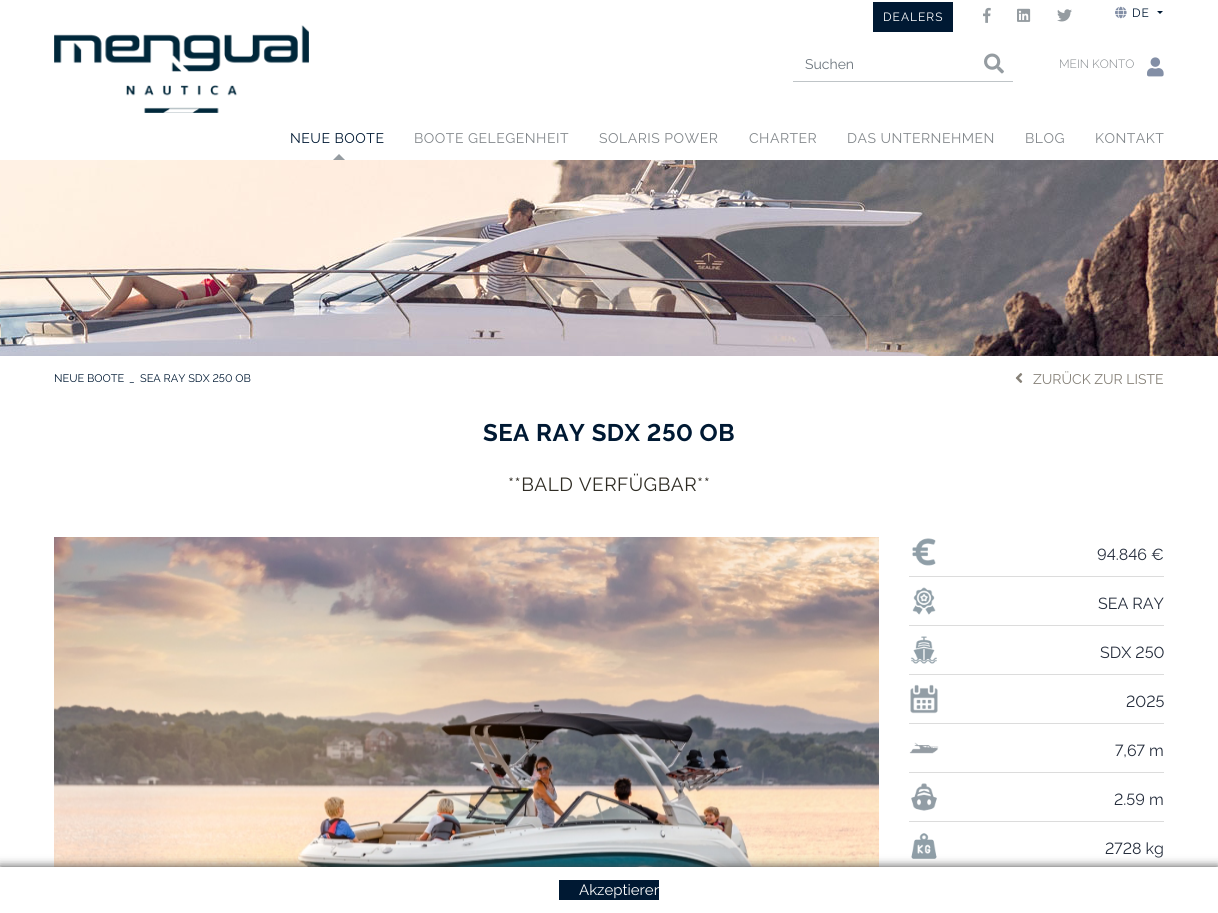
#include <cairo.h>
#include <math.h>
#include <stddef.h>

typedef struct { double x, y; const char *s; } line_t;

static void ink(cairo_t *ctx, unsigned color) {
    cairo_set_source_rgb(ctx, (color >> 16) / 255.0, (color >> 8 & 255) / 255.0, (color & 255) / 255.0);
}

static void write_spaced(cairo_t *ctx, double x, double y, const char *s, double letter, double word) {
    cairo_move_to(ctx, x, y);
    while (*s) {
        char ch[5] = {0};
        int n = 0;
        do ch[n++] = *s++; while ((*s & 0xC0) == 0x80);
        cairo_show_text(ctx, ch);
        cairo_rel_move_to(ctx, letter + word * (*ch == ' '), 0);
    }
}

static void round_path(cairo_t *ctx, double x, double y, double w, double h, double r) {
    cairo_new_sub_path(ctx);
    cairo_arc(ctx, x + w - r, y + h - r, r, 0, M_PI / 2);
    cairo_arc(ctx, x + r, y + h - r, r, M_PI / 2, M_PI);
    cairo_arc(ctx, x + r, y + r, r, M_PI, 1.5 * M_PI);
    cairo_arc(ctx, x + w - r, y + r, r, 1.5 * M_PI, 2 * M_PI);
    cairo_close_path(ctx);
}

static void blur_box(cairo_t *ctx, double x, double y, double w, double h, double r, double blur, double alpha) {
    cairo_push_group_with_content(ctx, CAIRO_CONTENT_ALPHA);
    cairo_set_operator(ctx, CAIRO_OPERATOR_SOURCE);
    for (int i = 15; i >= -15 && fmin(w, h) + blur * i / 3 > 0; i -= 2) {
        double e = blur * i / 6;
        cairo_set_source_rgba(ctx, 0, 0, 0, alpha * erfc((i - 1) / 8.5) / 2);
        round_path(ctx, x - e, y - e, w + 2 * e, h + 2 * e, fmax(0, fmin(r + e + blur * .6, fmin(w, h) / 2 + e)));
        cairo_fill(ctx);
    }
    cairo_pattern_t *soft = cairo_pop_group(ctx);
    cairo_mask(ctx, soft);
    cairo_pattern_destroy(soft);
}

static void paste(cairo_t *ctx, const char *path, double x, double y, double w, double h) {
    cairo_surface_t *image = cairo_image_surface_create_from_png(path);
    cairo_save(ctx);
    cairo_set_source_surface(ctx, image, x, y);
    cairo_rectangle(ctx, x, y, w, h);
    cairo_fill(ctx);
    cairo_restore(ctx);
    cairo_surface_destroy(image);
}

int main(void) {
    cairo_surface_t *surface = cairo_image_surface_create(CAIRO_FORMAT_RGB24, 1218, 913);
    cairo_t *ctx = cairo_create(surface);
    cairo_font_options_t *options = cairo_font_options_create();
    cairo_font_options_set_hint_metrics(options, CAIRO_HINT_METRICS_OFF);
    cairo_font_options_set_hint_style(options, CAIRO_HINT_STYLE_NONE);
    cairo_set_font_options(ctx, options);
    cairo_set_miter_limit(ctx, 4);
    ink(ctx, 0xFFFFFF);
    cairo_paint(ctx);
    paste(ctx, "media/1.png", 54, 25, 255, 88);
    ink(ctx, 0x001933);
    cairo_rectangle(ctx, 873, 2, 80, 30);
    cairo_fill(ctx);
    cairo_select_font_face(ctx, "Raleway", CAIRO_FONT_SLANT_NORMAL, CAIRO_FONT_WEIGHT_NORMAL);
    cairo_set_font_size(ctx, 12);
    ink(ctx, 0xFFFFFF);
    write_spaced(ctx, 883, 21, "DEALERS", 1, 0);
    paste(ctx, "media/2.png", 983, 7, 8, 16);
    paste(ctx, "media/3.png", 1017, 8, 14, 14);
    paste(ctx, "media/4.png", 1057, 9, 15, 13);
    paste(ctx, "media/5.png", 1115, 6, 12, 13);
    ink(ctx, 0x001933);
    write_spaced(ctx, 1132, 17, "DE", 1, 0);
    cairo_new_path(ctx);
    cairo_move_to(ctx, 1157, 11);
    cairo_line_to(ctx, 1163, 11);
    cairo_line_to(ctx, 1160, 14);
    cairo_close_path(ctx);
    cairo_fill(ctx);
    ink(ctx, 0xBFC4C7);
    cairo_rectangle(ctx, 793, 81, 220, 1);
    cairo_fill(ctx);
    cairo_set_font_size(ctx, 14);
    ink(ctx, 0x6C757D);
    cairo_move_to(ctx, 805, 69);
    cairo_show_text(ctx, "Suchen");
    paste(ctx, "media/6.png", 984, 53, 20, 21);
    cairo_select_font_face(ctx, "Raleway Light", CAIRO_FONT_SLANT_NORMAL, CAIRO_FONT_WEIGHT_NORMAL);
    cairo_set_font_size(ctx, 12);
    ink(ctx, 0x83888C);
    cairo_move_to(ctx, 1059, 68);
    cairo_show_text(ctx, "MEIN KONTO");
    paste(ctx, "media/7.png", 1147, 57, 17, 20);
    cairo_select_font_face(ctx, "Raleway", CAIRO_FONT_SLANT_NORMAL, CAIRO_FONT_WEIGHT_NORMAL);
    cairo_set_font_size(ctx, 14);
    ink(ctx, 0x001933);
    write_spaced(ctx, 290, 143, "NEUE BOOTE", 0.5, 0);
    ink(ctx, 0x959CA1);
    cairo_new_path(ctx);
    cairo_move_to(ctx, 345, 160);
    cairo_line_to(ctx, 333, 160);
    cairo_line_to(ctx, 339, 154);
    cairo_close_path(ctx);
    cairo_fill(ctx);
    ink(ctx, 0x83888C);
    {
        static const line_t items[] = {
            {414, 143, "BOOTE GELEGENHEIT"},
            {599, 143, "SOLARIS POWER"},
            {749, 143, "CHARTER"},
            {847, 143, "DAS UNTERNEHMEN"},
            {1025, 143, "BLOG"},
            {1095, 143, "KONTAKT"},
        };
        for (size_t i = 0; i < sizeof items / sizeof *items; i++) {
            write_spaced(ctx, items[i].x, items[i].y, items[i].s, 0.5, 0);
        }
    }
    paste(ctx, "media/8.png", 0, 160, 1218, 196);
    cairo_set_font_size(ctx, 11);
    ink(ctx, 0x001933);
    {
        static const line_t items[] = {
            {54, 382, "NEUE BOOTE"},
            {129, 382, "_"},
            {140, 382, "SEA RAY SDX 250 OB"},
        };
        for (size_t i = 0; i < sizeof items / sizeof *items; i++) {
            cairo_move_to(ctx, items[i].x, items[i].y);
            cairo_show_text(ctx, items[i].s);
        }
    }
    paste(ctx, "media/9.png", 1015, 373, 8, 10);
    cairo_set_font_size(ctx, 14);
    ink(ctx, 0x868178);
    cairo_move_to(ctx, 1033, 384);
    cairo_show_text(ctx, "ZURÜCK ZUR LISTE");
    cairo_select_font_face(ctx, "Raleway", CAIRO_FONT_SLANT_NORMAL, CAIRO_FONT_WEIGHT_BOLD);
    cairo_set_font_size(ctx, 24);
    ink(ctx, 0x001933);
    write_spaced(ctx, 483, 441, "SEA RAY SDX 250 OB", 0.5, 0);
    cairo_select_font_face(ctx, "Raleway", CAIRO_FONT_SLANT_NORMAL, CAIRO_FONT_WEIGHT_NORMAL);
    cairo_set_font_size(ctx, 19);
    ink(ctx, 0x2F2C24);
    write_spaced(ctx, 508, 491, "**BALD VERFÜGBAR**", 0.5, 0);
    paste(ctx, "media/10.png", 54, 537, 825, 330);
    ink(ctx, 0xDCDCDC);
    cairo_rectangle(ctx, 909, 576, 255, 1);
    cairo_fill(ctx);
    paste(ctx, "media/11.png", 912, 538, 24, 28);
    cairo_set_font_size(ctx, 16);
    ink(ctx, 0x262E3D);
    cairo_move_to(ctx, 1097, 560);
    cairo_show_text(ctx, "94.846 €");
    ink(ctx, 0xDCDCDC);
    cairo_rectangle(ctx, 909, 625, 255, 1);
    cairo_fill(ctx);
    paste(ctx, "media/12.png", 912, 587, 24, 28);
    ink(ctx, 0x262E3D);
    cairo_move_to(ctx, 1098, 609);
    cairo_show_text(ctx, "SEA RAY");
    ink(ctx, 0xDCDCDC);
    cairo_rectangle(ctx, 909, 674, 255, 1);
    cairo_fill(ctx);
    paste(ctx, "media/13.png", 910, 636, 27, 28);
    ink(ctx, 0x262E3D);
    cairo_move_to(ctx, 1100, 658);
    cairo_show_text(ctx, "SDX 250");
    ink(ctx, 0xDCDCDC);
    cairo_rectangle(ctx, 909, 723, 255, 1);
    cairo_fill(ctx);
    paste(ctx, "media/14.png", 910, 684, 28, 30);
    ink(ctx, 0x262E3D);
    cairo_move_to(ctx, 1126, 707);
    cairo_show_text(ctx, "2025");
    ink(ctx, 0xDCDCDC);
    cairo_rectangle(ctx, 909, 772, 255, 1);
    cairo_fill(ctx);
    paste(ctx, "media/15.png", 909, 742, 30, 12);
    ink(ctx, 0x262E3D);
    cairo_move_to(ctx, 1115, 756);
    cairo_show_text(ctx, "7,67 m");
    ink(ctx, 0xDCDCDC);
    cairo_rectangle(ctx, 909, 821, 255, 1);
    cairo_fill(ctx);
    paste(ctx, "media/16.png", 911, 783, 26, 28);
    ink(ctx, 0x262E3D);
    cairo_move_to(ctx, 1114, 805);
    cairo_show_text(ctx, "2.59 m");
    paste(ctx, "media/17.png", 911, 833, 26, 26);
    cairo_move_to(ctx, 1105, 854);
    cairo_show_text(ctx, "2728 kg");
    ink(ctx, 0x444444);
    blur_box(ctx, 0, 867, 1218, 46, 0, 5, 1);
    ink(ctx, 0xFFFFFF);
    cairo_rectangle(ctx, 0, 867, 1218, 46);
    cairo_fill(ctx);
    ink(ctx, 0x001933);
    cairo_rectangle(ctx, 559, 880, 100, 20);
    cairo_fill(ctx);
    cairo_set_font_size(ctx, 15);
    ink(ctx, 0xFFFFFF);
    cairo_move_to(ctx, 579, 895);
    cairo_show_text(ctx, "Akzeptieren");
    cairo_surface_write_to_png(surface, "image.png");
    cairo_font_options_destroy(options);
    cairo_destroy(ctx);
    cairo_surface_destroy(surface);
    return 0;
}
